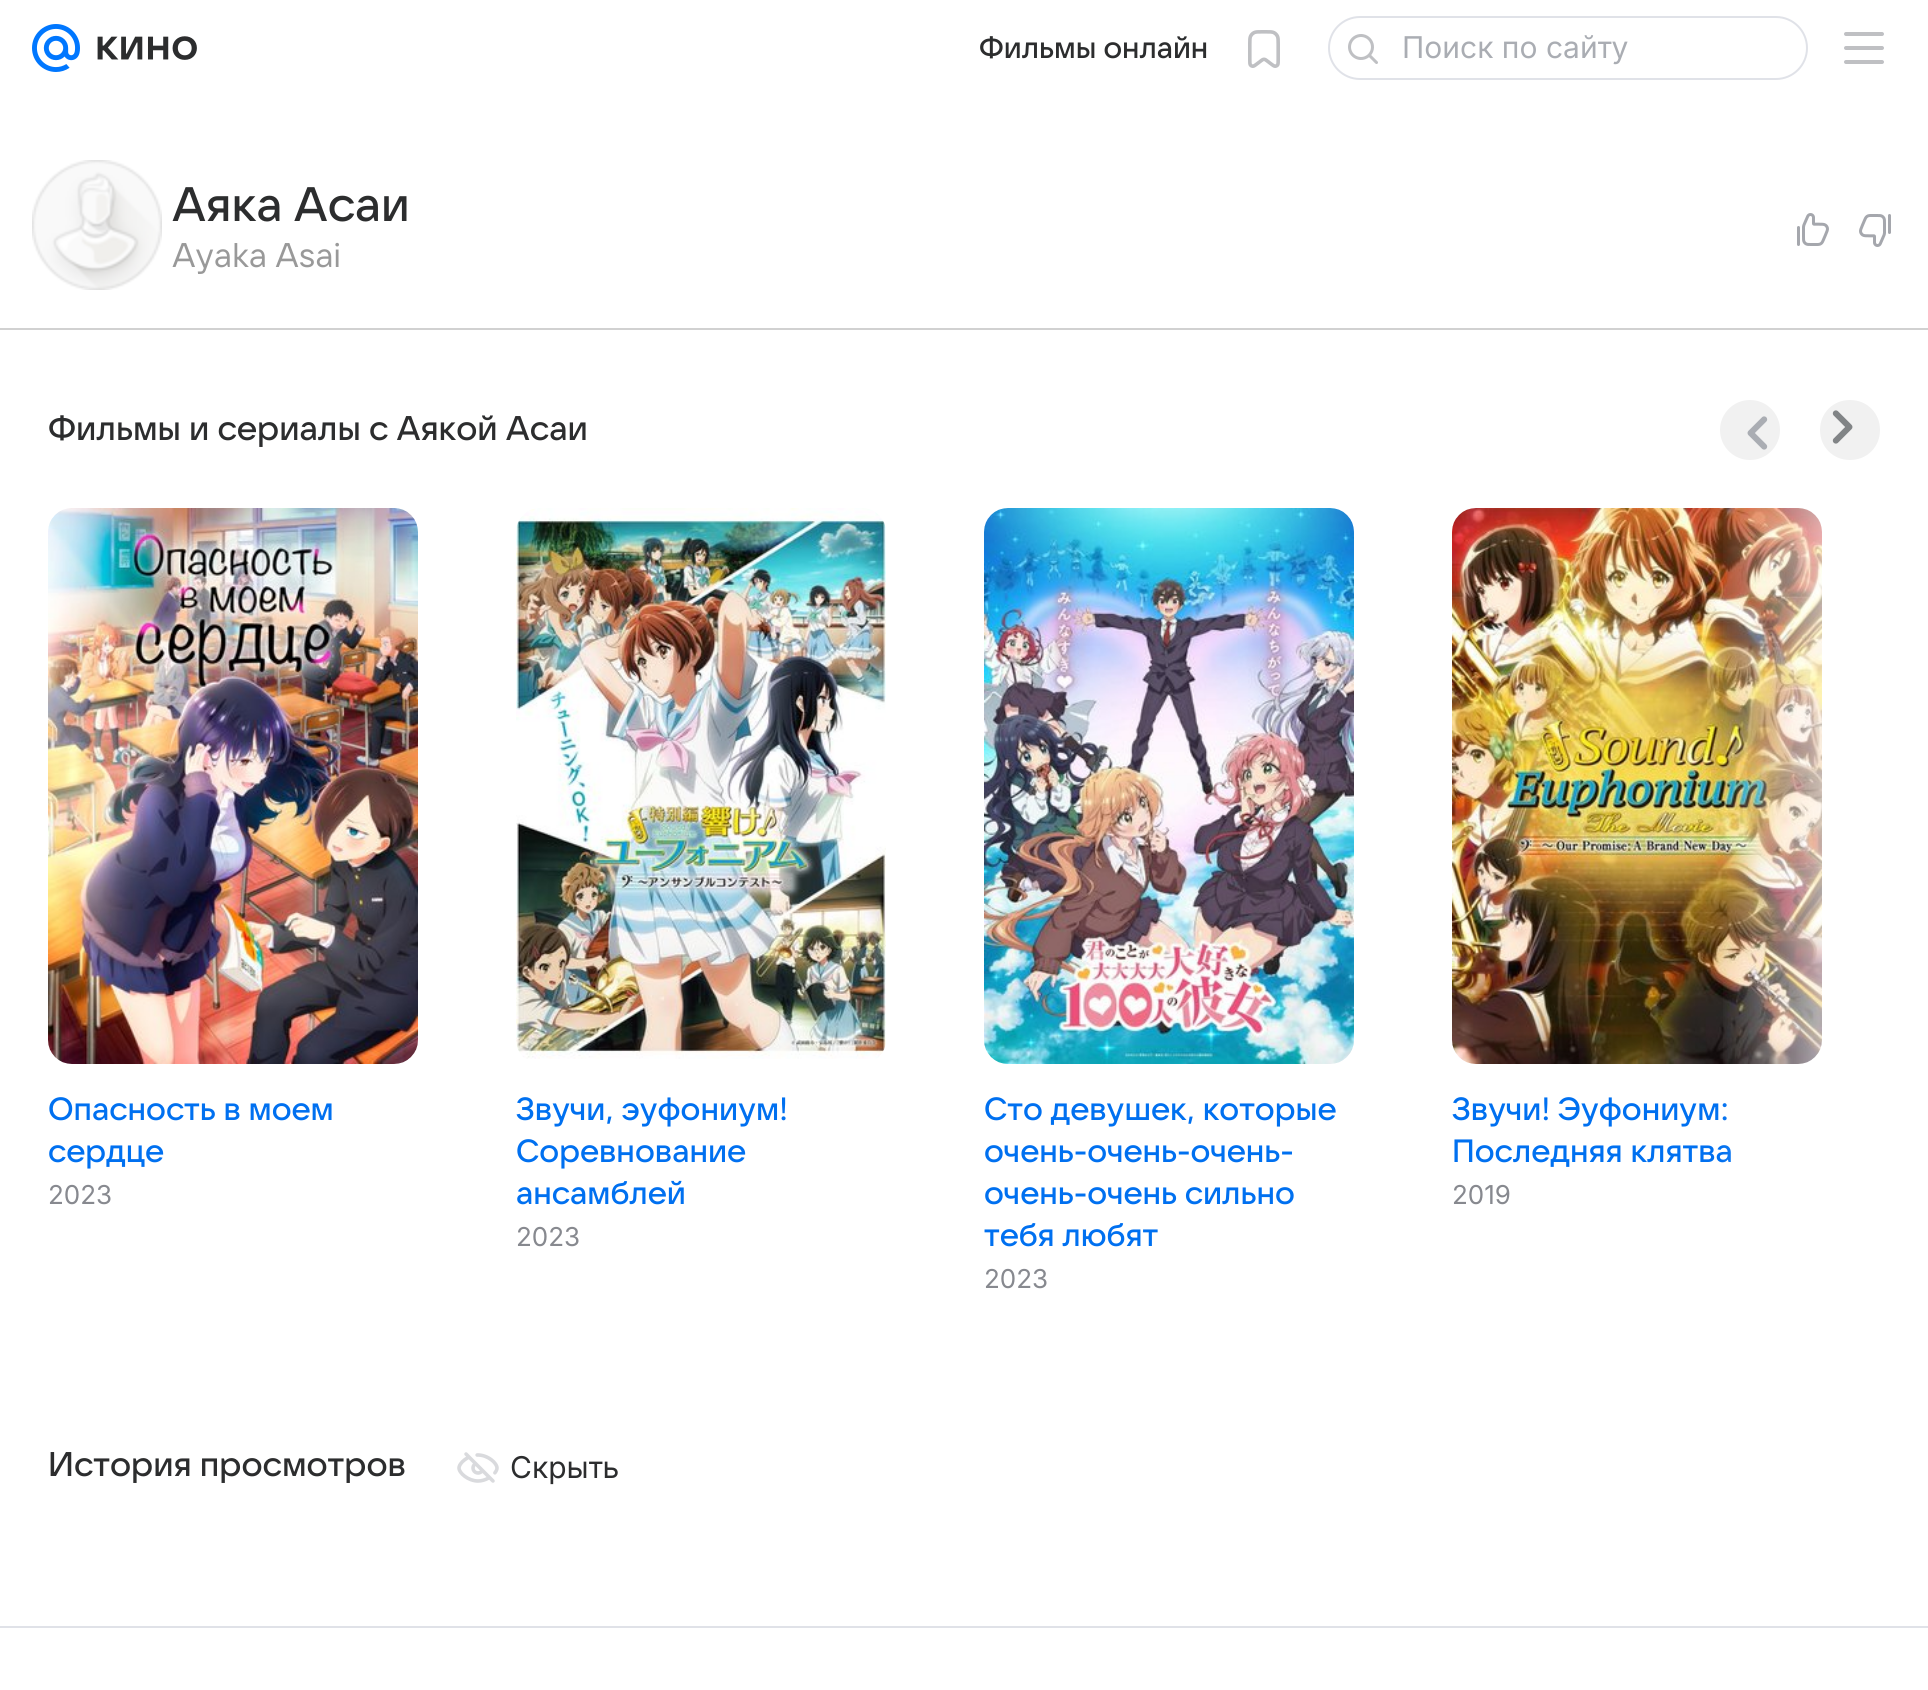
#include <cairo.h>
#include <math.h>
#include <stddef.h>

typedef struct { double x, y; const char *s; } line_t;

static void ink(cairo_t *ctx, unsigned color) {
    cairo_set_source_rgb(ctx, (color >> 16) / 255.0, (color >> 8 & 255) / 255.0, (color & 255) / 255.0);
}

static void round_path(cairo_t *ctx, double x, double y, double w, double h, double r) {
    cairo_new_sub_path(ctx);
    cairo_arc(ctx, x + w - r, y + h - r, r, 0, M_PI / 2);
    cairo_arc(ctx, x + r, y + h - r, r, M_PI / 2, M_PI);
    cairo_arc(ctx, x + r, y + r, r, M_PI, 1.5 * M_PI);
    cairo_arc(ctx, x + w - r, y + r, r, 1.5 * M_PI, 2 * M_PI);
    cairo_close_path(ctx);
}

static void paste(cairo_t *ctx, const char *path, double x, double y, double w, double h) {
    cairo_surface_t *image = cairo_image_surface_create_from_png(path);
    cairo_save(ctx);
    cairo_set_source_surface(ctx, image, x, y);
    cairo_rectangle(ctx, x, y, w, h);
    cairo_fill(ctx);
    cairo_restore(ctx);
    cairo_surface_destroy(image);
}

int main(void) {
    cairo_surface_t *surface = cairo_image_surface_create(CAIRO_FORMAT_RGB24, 1928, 1690);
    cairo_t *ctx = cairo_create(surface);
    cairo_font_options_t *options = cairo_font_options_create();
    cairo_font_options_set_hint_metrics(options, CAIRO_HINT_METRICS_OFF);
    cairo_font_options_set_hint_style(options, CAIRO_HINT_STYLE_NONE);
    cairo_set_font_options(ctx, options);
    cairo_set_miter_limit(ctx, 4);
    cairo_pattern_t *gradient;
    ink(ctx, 0xFFFFFF);
    cairo_paint(ctx);
    paste(ctx, "media/1.png", 32, 24, 48, 48);
    paste(ctx, "media/2.png", 97, 36, 100, 24);
    cairo_select_font_face(ctx, "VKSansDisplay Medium", CAIRO_FONT_SLANT_NORMAL, CAIRO_FONT_WEIGHT_NORMAL);
    cairo_set_font_size(ctx, 30);
    ink(ctx, 0x2C2D2E);
    cairo_move_to(ctx, 979, 58);
    cairo_show_text(ctx, "Фильмы онлайн");
    paste(ctx, "media/3.png", 1248, 30, 32, 38);
    round_path(ctx, 1329, 17, 478, 62, 31);
    ink(ctx, 0xE0E2E8);
    cairo_stroke(ctx);
    paste(ctx, "media/4.png", 1348, 34, 30, 30);
    cairo_select_font_face(ctx, "Inter", CAIRO_FONT_SLANT_NORMAL, CAIRO_FONT_WEIGHT_NORMAL);
    ink(ctx, 0xAAADB3);
    cairo_move_to(ctx, 1402, 58);
    cairo_show_text(ctx, "Поиск по сайту");
    paste(ctx, "media/5.png", 1844, 32, 40, 32);
    ink(ctx, 0xD1D1D1);
    cairo_rectangle(ctx, 0, 328, 1928, 2);
    cairo_fill(ctx);
    paste(ctx, "media/6.png", 32, 160, 130, 130);
    cairo_select_font_face(ctx, "VKSansDisplay Medium", CAIRO_FONT_SLANT_NORMAL, CAIRO_FONT_WEIGHT_NORMAL);
    cairo_set_font_size(ctx, 48);
    ink(ctx, 0x2C2D2E);
    cairo_move_to(ctx, 172, 221);
    cairo_show_text(ctx, "Аяка Асаи");
    cairo_select_font_face(ctx, "VKSansDisplay", CAIRO_FONT_SLANT_NORMAL, CAIRO_FONT_WEIGHT_NORMAL);
    cairo_set_font_size(ctx, 34);
    ink(ctx, 0x999999);
    cairo_move_to(ctx, 172, 267);
    cairo_show_text(ctx, "Ayaka Asai");
    paste(ctx, "media/7.png", 1797, 213, 32, 33);
    paste(ctx, "media/8.png", 1859, 214, 32, 33);
    cairo_select_font_face(ctx, "VKSansDisplay Medium", CAIRO_FONT_SLANT_NORMAL, CAIRO_FONT_WEIGHT_NORMAL);
    ink(ctx, 0x2C2D2E);
    cairo_move_to(ctx, 48, 440);
    cairo_show_text(ctx, "Фильмы и сериалы с Аякой Асаи");
    ink(ctx, 0xF1F1F1);
    cairo_new_path(ctx);
    cairo_arc(ctx, 1750, 430, 30, 0, 2 * M_PI);
    cairo_fill(ctx);
    paste(ctx, "media/9.png", 1747, 416, 21, 34);
    cairo_new_path(ctx);
    cairo_move_to(ctx, 1850, 460);
    cairo_curve_to(ctx, 1833, 460, 1820, 447, 1820, 430);
    cairo_curve_to(ctx, 1820, 413, 1833, 400, 1850, 400);
    cairo_curve_to(ctx, 1867, 400, 1880, 413, 1880, 430);
    cairo_curve_to(ctx, 1880, 447, 1867, 460, 1850, 460);
    cairo_close_path(ctx);
    cairo_fill(ctx);
    paste(ctx, "media/10.png", 1832, 410, 21, 34);
    paste(ctx, "media/14.png", 1452, 508, 370, 556);
    cairo_set_font_size(ctx, 32);
    ink(ctx, 0x0070F0);
    cairo_move_to(ctx, 1452, 1120);
    cairo_show_text(ctx, "Звучи! Эуфониум:");
    cairo_move_to(ctx, 1452, 1162);
    cairo_show_text(ctx, "Последняя клятва");
    gradient = cairo_pattern_create_linear(1720, 923, 1880, 923);
    cairo_pattern_add_color_stop_rgba(gradient, 0, 1, 1, 1, 0);
    cairo_pattern_add_color_stop_rgba(gradient, 1, 1, 1, 1, 1);
    cairo_set_source(ctx, gradient);
    cairo_pattern_destroy(gradient);
    cairo_rectangle(ctx, 1723, 508, 99, 654);
    cairo_fill(ctx);
    paste(ctx, "media/11.png", 48, 508, 370, 556);
    ink(ctx, 0x0070F0);
    cairo_move_to(ctx, 48, 1120);
    cairo_show_text(ctx, "Опасность в моем");
    cairo_move_to(ctx, 48, 1162);
    cairo_show_text(ctx, "сердце");
    cairo_select_font_face(ctx, "Inter", CAIRO_FONT_SLANT_NORMAL, CAIRO_FONT_WEIGHT_NORMAL);
    cairo_set_font_size(ctx, 26);
    ink(ctx, 0x87898F);
    cairo_move_to(ctx, 48, 1204);
    cairo_show_text(ctx, "2023");
    paste(ctx, "media/12.png", 516, 508, 370, 551);
    cairo_select_font_face(ctx, "VKSansDisplay Medium", CAIRO_FONT_SLANT_NORMAL, CAIRO_FONT_WEIGHT_NORMAL);
    cairo_set_font_size(ctx, 32);
    ink(ctx, 0x0070F0);
    {
        static const line_t items[] = {
            {516, 1120, "Звучи, эуфониум!"},
            {516, 1162, "Соревнование"},
            {516, 1204, "ансамблей"},
        };
        for (size_t i = 0; i < sizeof items / sizeof *items; i++) {
            cairo_move_to(ctx, items[i].x, items[i].y);
            cairo_show_text(ctx, items[i].s);
        }
    }
    cairo_select_font_face(ctx, "Inter", CAIRO_FONT_SLANT_NORMAL, CAIRO_FONT_WEIGHT_NORMAL);
    cairo_set_font_size(ctx, 26);
    ink(ctx, 0x87898F);
    cairo_move_to(ctx, 516, 1246);
    cairo_show_text(ctx, "2023");
    paste(ctx, "media/13.png", 984, 508, 370, 556);
    cairo_select_font_face(ctx, "VKSansDisplay Medium", CAIRO_FONT_SLANT_NORMAL, CAIRO_FONT_WEIGHT_NORMAL);
    cairo_set_font_size(ctx, 32);
    ink(ctx, 0x0070F0);
    {
        static const line_t items[] = {
            {984, 1120, "Сто девушек, которые"},
            {984, 1162, "очень-очень-очень-"},
            {984, 1204, "очень-очень сильно"},
            {984, 1246, "тебя любят"},
        };
        for (size_t i = 0; i < sizeof items / sizeof *items; i++) {
            cairo_move_to(ctx, items[i].x, items[i].y);
            cairo_show_text(ctx, items[i].s);
        }
    }
    cairo_select_font_face(ctx, "Inter", CAIRO_FONT_SLANT_NORMAL, CAIRO_FONT_WEIGHT_NORMAL);
    cairo_set_font_size(ctx, 26);
    ink(ctx, 0x87898F);
    cairo_move_to(ctx, 984, 1288);
    cairo_show_text(ctx, "2023");
    cairo_move_to(ctx, 1452, 1204);
    cairo_show_text(ctx, "2019");
    cairo_select_font_face(ctx, "VKSansDisplay Medium", CAIRO_FONT_SLANT_NORMAL, CAIRO_FONT_WEIGHT_NORMAL);
    cairo_set_font_size(ctx, 34);
    ink(ctx, 0x2C2D2E);
    cairo_move_to(ctx, 48, 1476);
    cairo_show_text(ctx, "История просмотров");
    paste(ctx, "media/15.png", 457, 1452, 42, 31);
    cairo_select_font_face(ctx, "Inter", CAIRO_FONT_SLANT_NORMAL, CAIRO_FONT_WEIGHT_NORMAL);
    cairo_set_font_size(ctx, 30);
    cairo_move_to(ctx, 510, 1478);
    cairo_show_text(ctx, "Скрыть");
    ink(ctx, 0xE0E2E8);
    cairo_rectangle(ctx, 0, 1626, 1928, 2);
    cairo_fill(ctx);
    cairo_surface_write_to_png(surface, "image.png");
    cairo_font_options_destroy(options);
    cairo_destroy(ctx);
    cairo_surface_destroy(surface);
    return 0;
}
